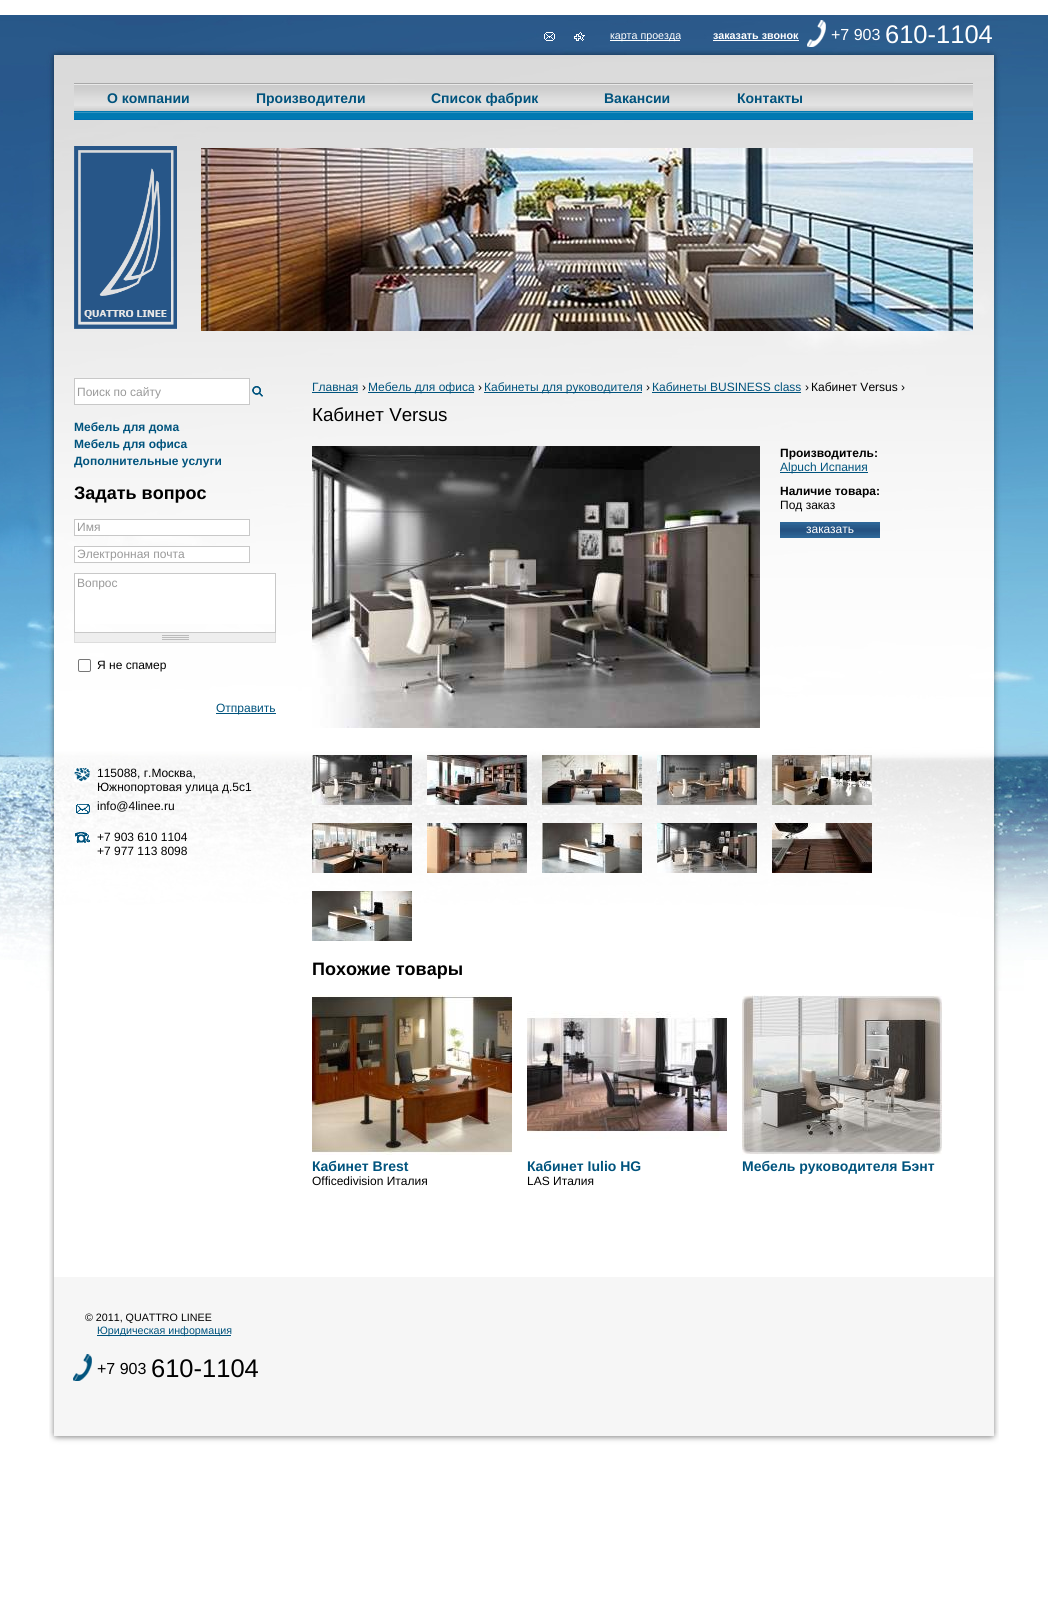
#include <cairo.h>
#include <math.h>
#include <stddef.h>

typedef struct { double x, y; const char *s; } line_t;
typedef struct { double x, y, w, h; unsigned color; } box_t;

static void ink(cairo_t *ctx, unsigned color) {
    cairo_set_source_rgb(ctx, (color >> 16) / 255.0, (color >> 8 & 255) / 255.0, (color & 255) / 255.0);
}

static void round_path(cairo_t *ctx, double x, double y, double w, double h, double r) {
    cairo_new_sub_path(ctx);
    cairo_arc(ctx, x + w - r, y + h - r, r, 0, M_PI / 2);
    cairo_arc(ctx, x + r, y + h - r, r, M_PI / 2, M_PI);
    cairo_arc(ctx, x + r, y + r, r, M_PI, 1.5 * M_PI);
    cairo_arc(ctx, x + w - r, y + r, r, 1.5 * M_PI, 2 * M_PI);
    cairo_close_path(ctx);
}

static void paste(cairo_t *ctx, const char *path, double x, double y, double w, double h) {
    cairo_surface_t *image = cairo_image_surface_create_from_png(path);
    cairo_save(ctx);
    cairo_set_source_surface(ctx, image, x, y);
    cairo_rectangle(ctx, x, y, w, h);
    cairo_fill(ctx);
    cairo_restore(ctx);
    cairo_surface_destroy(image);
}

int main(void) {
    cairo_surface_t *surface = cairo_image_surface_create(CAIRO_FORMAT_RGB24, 1048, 1615);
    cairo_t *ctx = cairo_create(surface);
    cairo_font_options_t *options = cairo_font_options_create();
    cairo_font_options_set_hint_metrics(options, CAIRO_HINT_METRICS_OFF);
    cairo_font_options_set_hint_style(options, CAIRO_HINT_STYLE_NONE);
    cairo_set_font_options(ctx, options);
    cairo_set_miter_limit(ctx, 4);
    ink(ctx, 0xFFFFFF);
    cairo_paint(ctx);
    paste(ctx, "media/1.png", 0, 15, 24, 945);
    paste(ctx, "media/2.png", 49, 991, 950, 442);
    paste(ctx, "media/3.png", 24, 15, 1000, 976);
    paste(ctx, "media/4.png", 544, 32, 11, 9);
    paste(ctx, "media/5.png", 574, 32, 11, 9);
    ink(ctx, 0xFFFFFF);
    cairo_rectangle(ctx, 610, 40, 70, 1);
    cairo_fill(ctx);
    cairo_select_font_face(ctx, "Liberation Sans", CAIRO_FONT_SLANT_NORMAL, CAIRO_FONT_WEIGHT_NORMAL);
    cairo_set_font_size(ctx, 10.7);
    cairo_move_to(ctx, 610, 39);
    cairo_show_text(ctx, "карта проезда");
    cairo_select_font_face(ctx, "Liberation Sans", CAIRO_FONT_SLANT_NORMAL, CAIRO_FONT_WEIGHT_BOLD);
    cairo_move_to(ctx, 713, 39);
    cairo_show_text(ctx, "заказать звонок");
    cairo_rectangle(ctx, 713, 40, 86, 1);
    cairo_fill(ctx);
    paste(ctx, "media/6.png", 807, 20, 19, 27);
    cairo_select_font_face(ctx, "Liberation Sans", CAIRO_FONT_SLANT_NORMAL, CAIRO_FONT_WEIGHT_NORMAL);
    cairo_set_font_size(ctx, 16);
    cairo_move_to(ctx, 831, 40);
    cairo_show_text(ctx, "+7 903");
    cairo_set_font_size(ctx, 25.5);
    cairo_move_to(ctx, 885, 43);
    cairo_show_text(ctx, "610-1104");
    paste(ctx, "media/7.png", 74, 83, 899, 37);
    cairo_select_font_face(ctx, "Liberation Sans", CAIRO_FONT_SLANT_NORMAL, CAIRO_FONT_WEIGHT_BOLD);
    cairo_set_font_size(ctx, 14);
    ink(ctx, 0x00537D);
    {
        static const line_t items[] = {
            {107, 103, "О компании"},
            {256, 103, "Производители"},
            {431, 103, "Список фабрик"},
            {604, 103, "Вакансии"},
            {737, 103, "Контакты"},
        };
        for (size_t i = 0; i < sizeof items / sizeof *items; i++) {
            cairo_move_to(ctx, items[i].x, items[i].y);
            cairo_show_text(ctx, items[i].s);
        }
    }
    paste(ctx, "media/8.png", 74, 146, 103, 183);
    paste(ctx, "media/9.png", 201, 148, 772, 183);
    ink(ctx, 0xFFFFFF);
    cairo_rectangle(ctx, 74.5, 378.5, 175, 26);
    cairo_fill_preserve(ctx);
    ink(ctx, 0xC8C8C8);
    cairo_set_line_width(ctx, 1);
    cairo_stroke(ctx);
    cairo_select_font_face(ctx, "Liberation Sans", CAIRO_FONT_SLANT_NORMAL, CAIRO_FONT_WEIGHT_NORMAL);
    cairo_set_font_size(ctx, 12);
    ink(ctx, 0x999999);
    cairo_move_to(ctx, 77, 396);
    cairo_show_text(ctx, "Поиск по сайту");
    paste(ctx, "media/10.png", 252, 386, 11, 11);
    cairo_select_font_face(ctx, "Liberation Sans", CAIRO_FONT_SLANT_NORMAL, CAIRO_FONT_WEIGHT_BOLD);
    ink(ctx, 0x00537D);
    {
        static const line_t items[] = {
            {74, 431, "Мебель для дома"},
            {74, 448, "Мебель для офиса"},
            {74, 465, "Дополнительные услуги"},
        };
        for (size_t i = 0; i < sizeof items / sizeof *items; i++) {
            cairo_move_to(ctx, items[i].x, items[i].y);
            cairo_show_text(ctx, items[i].s);
        }
    }
    cairo_set_font_size(ctx, 18);
    ink(ctx, 0x000000);
    cairo_move_to(ctx, 74, 499);
    cairo_show_text(ctx, "Задать вопрос");
    ink(ctx, 0xFFFFFF);
    cairo_rectangle(ctx, 74.5, 519.5, 175, 16);
    cairo_fill_preserve(ctx);
    ink(ctx, 0xC8C8C8);
    cairo_stroke(ctx);
    cairo_select_font_face(ctx, "Liberation Sans", CAIRO_FONT_SLANT_NORMAL, CAIRO_FONT_WEIGHT_NORMAL);
    cairo_set_font_size(ctx, 12);
    ink(ctx, 0x999999);
    cairo_move_to(ctx, 77, 531);
    cairo_show_text(ctx, "Имя");
    ink(ctx, 0xFFFFFF);
    cairo_rectangle(ctx, 74.5, 546.5, 175, 16);
    cairo_fill_preserve(ctx);
    ink(ctx, 0xC8C8C8);
    cairo_stroke(ctx);
    ink(ctx, 0x999999);
    cairo_move_to(ctx, 77, 558);
    cairo_show_text(ctx, "Электронная почта");
    ink(ctx, 0xFFFFFF);
    cairo_rectangle(ctx, 75, 574, 200, 50);
    cairo_fill(ctx);
    cairo_rectangle(ctx, 74.5, 573.5, 201, 59);
    ink(ctx, 0xC8C8C8);
    cairo_stroke(ctx);
    ink(ctx, 0x999999);
    cairo_move_to(ctx, 77, 587);
    cairo_show_text(ctx, "Вопрос");
    ink(ctx, 0xEEEEEE);
    cairo_rectangle(ctx, 75, 633, 200, 9);
    cairo_fill(ctx);
    paste(ctx, "media/11.png", 162, 635, 27, 5);
    {
        static const box_t items[] = {
            {275, 633, 1, 10, 0xDDDDDD},
            {74, 642, 202, 1, 0xDDDDDD},
            {74, 633, 1, 10, 0xDDDDDD},
        };
        for (size_t i = 0; i < sizeof items / sizeof *items; i++) {
            ink(ctx, items[i].color);
            cairo_rectangle(ctx, items[i].x, items[i].y, items[i].w, items[i].h);
            cairo_fill(ctx);
        }
    }
    round_path(ctx, 78.5, 659.5, 12, 12, 1.5);
    ink(ctx, 0x767676);
    cairo_stroke(ctx);
    ink(ctx, 0x000000);
    cairo_move_to(ctx, 97, 669);
    cairo_show_text(ctx, "Я не спамер");
    ink(ctx, 0x00537D);
    cairo_rectangle(ctx, 216, 713, 60, 1);
    cairo_fill(ctx);
    cairo_move_to(ctx, 216, 712);
    cairo_show_text(ctx, "Отправить");
    paste(ctx, "media/12.png", 74, 768, 16, 14);
    ink(ctx, 0x000000);
    cairo_move_to(ctx, 97, 777);
    cairo_show_text(ctx, "115088, г.Москва,");
    cairo_move_to(ctx, 97, 791);
    cairo_show_text(ctx, "Южнопортовая улица д.5с1");
    paste(ctx, "media/13.png", 76, 804, 14, 10);
    cairo_move_to(ctx, 97, 810);
    cairo_show_text(ctx, "info@4linee.ru");
    paste(ctx, "media/14.png", 75, 832, 15, 11);
    cairo_move_to(ctx, 97, 841);
    cairo_show_text(ctx, "+7 903 610 1104");
    cairo_move_to(ctx, 97, 855);
    cairo_show_text(ctx, "+7 977 113 8098");
    ink(ctx, 0x00537D);
    cairo_move_to(ctx, 312, 391);
    cairo_show_text(ctx, "Главная");
    cairo_rectangle(ctx, 312, 392, 46, 1);
    cairo_fill(ctx);
    ink(ctx, 0x000000);
    cairo_move_to(ctx, 362, 391);
    cairo_show_text(ctx, "›");
    ink(ctx, 0x00537D);
    cairo_rectangle(ctx, 368, 392, 106, 1);
    cairo_fill(ctx);
    cairo_move_to(ctx, 368, 391);
    cairo_show_text(ctx, "Мебель для офиса");
    ink(ctx, 0x000000);
    cairo_move_to(ctx, 478, 391);
    cairo_show_text(ctx, "›");
    ink(ctx, 0x00537D);
    cairo_rectangle(ctx, 484, 392, 158, 1);
    cairo_fill(ctx);
    cairo_move_to(ctx, 484, 391);
    cairo_show_text(ctx, "Кабинеты для руководителя");
    ink(ctx, 0x000000);
    cairo_move_to(ctx, 646, 391);
    cairo_show_text(ctx, "›");
    ink(ctx, 0x00537D);
    cairo_move_to(ctx, 652, 391);
    cairo_show_text(ctx, "Кабинеты BUSINESS class");
    cairo_rectangle(ctx, 652, 392, 149, 1);
    cairo_fill(ctx);
    ink(ctx, 0x000000);
    cairo_move_to(ctx, 805, 391);
    cairo_show_text(ctx, "›");
    cairo_move_to(ctx, 811, 391);
    cairo_show_text(ctx, "Кабинет Versus ›");
    cairo_set_font_size(ctx, 18.75);
    cairo_move_to(ctx, 312, 421);
    cairo_show_text(ctx, "Кабинет Versus");
    paste(ctx, "media/15.png", 312, 446, 448, 282);
    cairo_select_font_face(ctx, "Liberation Sans", CAIRO_FONT_SLANT_NORMAL, CAIRO_FONT_WEIGHT_BOLD);
    cairo_set_font_size(ctx, 12);
    cairo_move_to(ctx, 780, 457);
    cairo_show_text(ctx, "Производитель:");
    ink(ctx, 0x00537D);
    cairo_rectangle(ctx, 780, 472, 88, 1);
    cairo_fill(ctx);
    cairo_select_font_face(ctx, "Liberation Sans", CAIRO_FONT_SLANT_NORMAL, CAIRO_FONT_WEIGHT_NORMAL);
    cairo_move_to(ctx, 780, 471);
    cairo_show_text(ctx, "Alpuch Испания");
    cairo_select_font_face(ctx, "Liberation Sans", CAIRO_FONT_SLANT_NORMAL, CAIRO_FONT_WEIGHT_BOLD);
    ink(ctx, 0x000000);
    cairo_move_to(ctx, 780, 495);
    cairo_show_text(ctx, "Наличие товара:");
    cairo_select_font_face(ctx, "Liberation Sans", CAIRO_FONT_SLANT_NORMAL, CAIRO_FONT_WEIGHT_NORMAL);
    cairo_move_to(ctx, 780, 509);
    cairo_show_text(ctx, "Под заказ");
    paste(ctx, "media/16.png", 780, 522, 100, 16);
    ink(ctx, 0xFFFFFF);
    cairo_move_to(ctx, 806, 533);
    cairo_show_text(ctx, "заказать");
    paste(ctx, "media/17.png", 312, 755, 100, 50);
    paste(ctx, "media/18.png", 427, 755, 100, 50);
    paste(ctx, "media/19.png", 542, 755, 100, 50);
    paste(ctx, "media/20.png", 657, 755, 100, 50);
    paste(ctx, "media/21.png", 772, 755, 100, 50);
    paste(ctx, "media/22.png", 312, 823, 100, 50);
    paste(ctx, "media/23.png", 427, 823, 100, 50);
    paste(ctx, "media/24.png", 542, 823, 100, 50);
    paste(ctx, "media/25.png", 657, 823, 100, 50);
    paste(ctx, "media/26.png", 772, 823, 100, 50);
    paste(ctx, "media/27.png", 312, 891, 100, 50);
    cairo_select_font_face(ctx, "Liberation Sans", CAIRO_FONT_SLANT_NORMAL, CAIRO_FONT_WEIGHT_BOLD);
    cairo_set_font_size(ctx, 18);
    ink(ctx, 0x000000);
    cairo_move_to(ctx, 312, 975);
    cairo_show_text(ctx, "Похожие товары");
    paste(ctx, "media/28.png", 312, 995, 200, 160);
    cairo_set_font_size(ctx, 14);
    ink(ctx, 0x00537D);
    cairo_move_to(ctx, 312, 1171);
    cairo_show_text(ctx, "Кабинет Brest");
    cairo_select_font_face(ctx, "Liberation Sans", CAIRO_FONT_SLANT_NORMAL, CAIRO_FONT_WEIGHT_NORMAL);
    cairo_set_font_size(ctx, 12);
    ink(ctx, 0x000000);
    cairo_move_to(ctx, 312, 1185);
    cairo_show_text(ctx, "Officedivision Италия");
    paste(ctx, "media/29.png", 527, 1011, 200, 128);
    cairo_select_font_face(ctx, "Liberation Sans", CAIRO_FONT_SLANT_NORMAL, CAIRO_FONT_WEIGHT_BOLD);
    cairo_set_font_size(ctx, 14);
    ink(ctx, 0x00537D);
    cairo_move_to(ctx, 527, 1171);
    cairo_show_text(ctx, "Кабинет Iulio HG");
    cairo_select_font_face(ctx, "Liberation Sans", CAIRO_FONT_SLANT_NORMAL, CAIRO_FONT_WEIGHT_NORMAL);
    cairo_set_font_size(ctx, 12);
    ink(ctx, 0x000000);
    cairo_move_to(ctx, 527, 1185);
    cairo_show_text(ctx, "LAS Италия");
    paste(ctx, "media/30.png", 742, 995, 200, 160);
    cairo_select_font_face(ctx, "Liberation Sans", CAIRO_FONT_SLANT_NORMAL, CAIRO_FONT_WEIGHT_BOLD);
    cairo_set_font_size(ctx, 14);
    ink(ctx, 0x00537D);
    cairo_move_to(ctx, 742, 1171);
    cairo_show_text(ctx, "Мебель руководителя Бэнт");
    ink(ctx, 0xF6F6F6);
    cairo_rectangle(ctx, 54, 1277, 940, 156);
    cairo_fill(ctx);
    paste(ctx, "media/31.png", 49, 1433, 950, 49);
    cairo_select_font_face(ctx, "Liberation Sans", CAIRO_FONT_SLANT_NORMAL, CAIRO_FONT_WEIGHT_NORMAL);
    cairo_set_font_size(ctx, 10.7);
    ink(ctx, 0x000000);
    cairo_move_to(ctx, 85, 1321);
    cairo_show_text(ctx, "© 2011, QUATTRO LINEE");
    ink(ctx, 0x00537D);
    cairo_rectangle(ctx, 97, 1335, 134, 1);
    cairo_fill(ctx);
    cairo_move_to(ctx, 97, 1334);
    cairo_show_text(ctx, "Юридическая информация");
    paste(ctx, "media/32.png", 73, 1354, 19, 27);
    cairo_set_font_size(ctx, 16);
    ink(ctx, 0x000000);
    cairo_move_to(ctx, 97, 1374);
    cairo_show_text(ctx, "+7 903");
    cairo_set_font_size(ctx, 25.5);
    cairo_move_to(ctx, 151, 1377);
    cairo_show_text(ctx, "610-1104");
    paste(ctx, "media/33.png", 1024, 15, 24, 945);
    cairo_surface_write_to_png(surface, "image.png");
    cairo_font_options_destroy(options);
    cairo_destroy(ctx);
    cairo_surface_destroy(surface);
    return 0;
}
